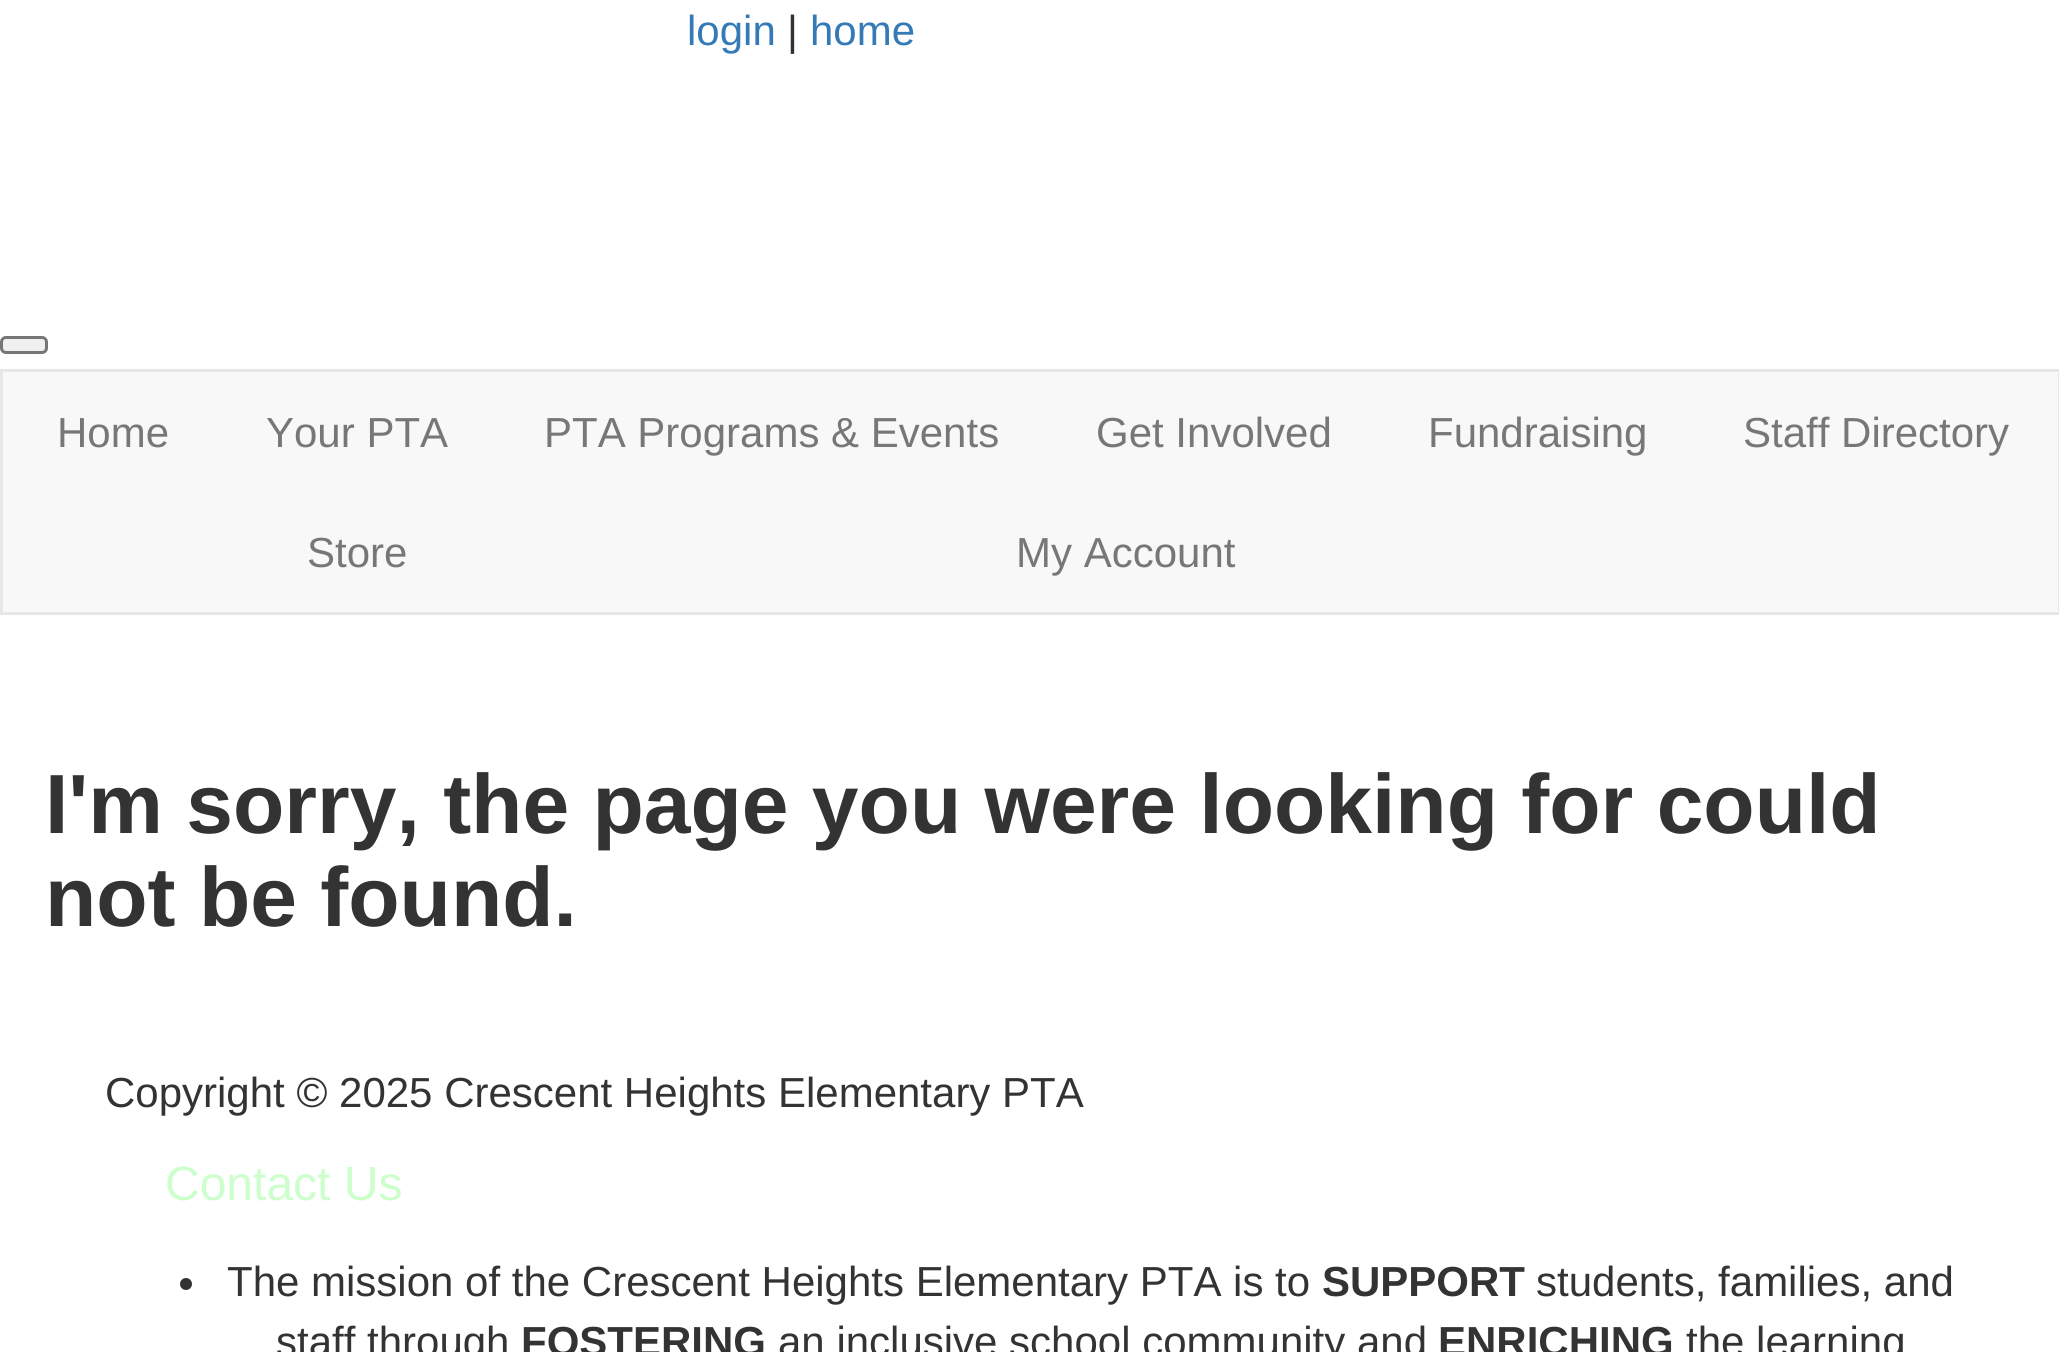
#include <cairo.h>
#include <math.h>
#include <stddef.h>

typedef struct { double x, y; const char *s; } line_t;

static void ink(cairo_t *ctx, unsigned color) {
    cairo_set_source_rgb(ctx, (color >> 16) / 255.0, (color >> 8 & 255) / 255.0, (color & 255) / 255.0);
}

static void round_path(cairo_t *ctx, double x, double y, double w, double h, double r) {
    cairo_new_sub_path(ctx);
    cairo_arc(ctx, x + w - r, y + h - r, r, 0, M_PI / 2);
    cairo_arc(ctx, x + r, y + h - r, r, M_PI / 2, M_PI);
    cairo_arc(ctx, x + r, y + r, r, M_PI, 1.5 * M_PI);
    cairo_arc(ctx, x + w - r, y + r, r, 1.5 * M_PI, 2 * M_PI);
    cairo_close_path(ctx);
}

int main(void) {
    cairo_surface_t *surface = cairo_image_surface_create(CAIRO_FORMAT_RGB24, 2059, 1352);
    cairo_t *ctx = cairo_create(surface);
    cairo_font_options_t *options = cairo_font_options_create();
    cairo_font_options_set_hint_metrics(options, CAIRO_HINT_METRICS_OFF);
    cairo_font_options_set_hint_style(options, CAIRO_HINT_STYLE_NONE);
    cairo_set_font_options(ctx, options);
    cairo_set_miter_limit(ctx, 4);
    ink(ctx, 0xFFFFFF);
    cairo_paint(ctx);
    cairo_select_font_face(ctx, "Liberation Sans", CAIRO_FONT_SLANT_NORMAL, CAIRO_FONT_WEIGHT_NORMAL);
    cairo_set_font_size(ctx, 42);
    ink(ctx, 0x337AB7);
    cairo_move_to(ctx, 687, 45);
    cairo_show_text(ctx, "login");
    ink(ctx, 0x333333);
    cairo_move_to(ctx, 787, 45);
    cairo_show_text(ctx, "|");
    ink(ctx, 0x337AB7);
    cairo_move_to(ctx, 810, 45);
    cairo_show_text(ctx, "home");
    ink(ctx, 0xEFEFEF);
    round_path(ctx, 1.5, 337.5, 45, 15, 4.5);
    cairo_fill_preserve(ctx);
    ink(ctx, 0x767676);
    cairo_set_line_width(ctx, 3);
    cairo_stroke(ctx);
    ink(ctx, 0xF8F8F8);
    cairo_rectangle(ctx, 1.5, 370.5, 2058, 243);
    cairo_fill_preserve(ctx);
    ink(ctx, 0xE7E7E7);
    cairo_stroke(ctx);
    ink(ctx, 0x777777);
    {
        static const line_t items[] = {
            {57, 447, "Home"},
            {266, 447, "Your PTA"},
            {544, 447, "PTA Programs & Events"},
            {1096, 447, "Get Involved"},
            {1428, 447, "Fundraising"},
            {1743, 447, "Staff Directory"},
            {307, 567, "Store"},
            {1016, 567, "My Account"},
        };
        for (size_t i = 0; i < sizeof items / sizeof *items; i++) {
            cairo_move_to(ctx, items[i].x, items[i].y);
            cairo_show_text(ctx, items[i].s);
        }
    }
    cairo_select_font_face(ctx, "Liberation Sans", CAIRO_FONT_SLANT_NORMAL, CAIRO_FONT_WEIGHT_BOLD);
    cairo_set_font_size(ctx, 84);
    ink(ctx, 0x333333);
    cairo_move_to(ctx, 45, 833);
    cairo_show_text(ctx, "I'm sorry, the page you were looking for could");
    cairo_move_to(ctx, 45, 926);
    cairo_show_text(ctx, "not be found.");
    cairo_select_font_face(ctx, "Liberation Sans", CAIRO_FONT_SLANT_NORMAL, CAIRO_FONT_WEIGHT_NORMAL);
    cairo_set_font_size(ctx, 42);
    cairo_move_to(ctx, 105, 1107);
    cairo_show_text(ctx, "Copyright © 2025 Crescent Heights Elementary PTA");
    cairo_set_font_size(ctx, 48);
    ink(ctx, 0xCCFFCC);
    cairo_move_to(ctx, 165, 1200);
    cairo_show_text(ctx, "Contact Us");
    ink(ctx, 0x333333);
    cairo_new_path(ctx);
    cairo_arc(ctx, 186, 1284, 6, 0, 2 * M_PI);
    cairo_fill(ctx);
    cairo_set_font_size(ctx, 42);
    cairo_move_to(ctx, 227, 1296);
    cairo_show_text(ctx, "The mission of the Crescent Heights Elementary PTA is to");
    cairo_select_font_face(ctx, "Liberation Sans", CAIRO_FONT_SLANT_NORMAL, CAIRO_FONT_WEIGHT_BOLD);
    cairo_move_to(ctx, 1322, 1296);
    cairo_show_text(ctx, "SUPPORT");
    cairo_select_font_face(ctx, "Liberation Sans", CAIRO_FONT_SLANT_NORMAL, CAIRO_FONT_WEIGHT_NORMAL);
    cairo_move_to(ctx, 1536, 1296);
    cairo_show_text(ctx, "students, families, and");
    cairo_move_to(ctx, 276, 1356);
    cairo_show_text(ctx, "staff through");
    cairo_select_font_face(ctx, "Liberation Sans", CAIRO_FONT_SLANT_NORMAL, CAIRO_FONT_WEIGHT_BOLD);
    cairo_move_to(ctx, 521, 1356);
    cairo_show_text(ctx, "FOSTERING");
    cairo_select_font_face(ctx, "Liberation Sans", CAIRO_FONT_SLANT_NORMAL, CAIRO_FONT_WEIGHT_NORMAL);
    cairo_move_to(ctx, 778, 1356);
    cairo_show_text(ctx, "an inclusive school community and");
    cairo_select_font_face(ctx, "Liberation Sans", CAIRO_FONT_SLANT_NORMAL, CAIRO_FONT_WEIGHT_BOLD);
    cairo_move_to(ctx, 1438, 1356);
    cairo_show_text(ctx, "ENRICHING");
    cairo_select_font_face(ctx, "Liberation Sans", CAIRO_FONT_SLANT_NORMAL, CAIRO_FONT_WEIGHT_NORMAL);
    cairo_move_to(ctx, 1686, 1356);
    cairo_show_text(ctx, "the learning");
    cairo_surface_write_to_png(surface, "image.png");
    cairo_font_options_destroy(options);
    cairo_destroy(ctx);
    cairo_surface_destroy(surface);
    return 0;
}
